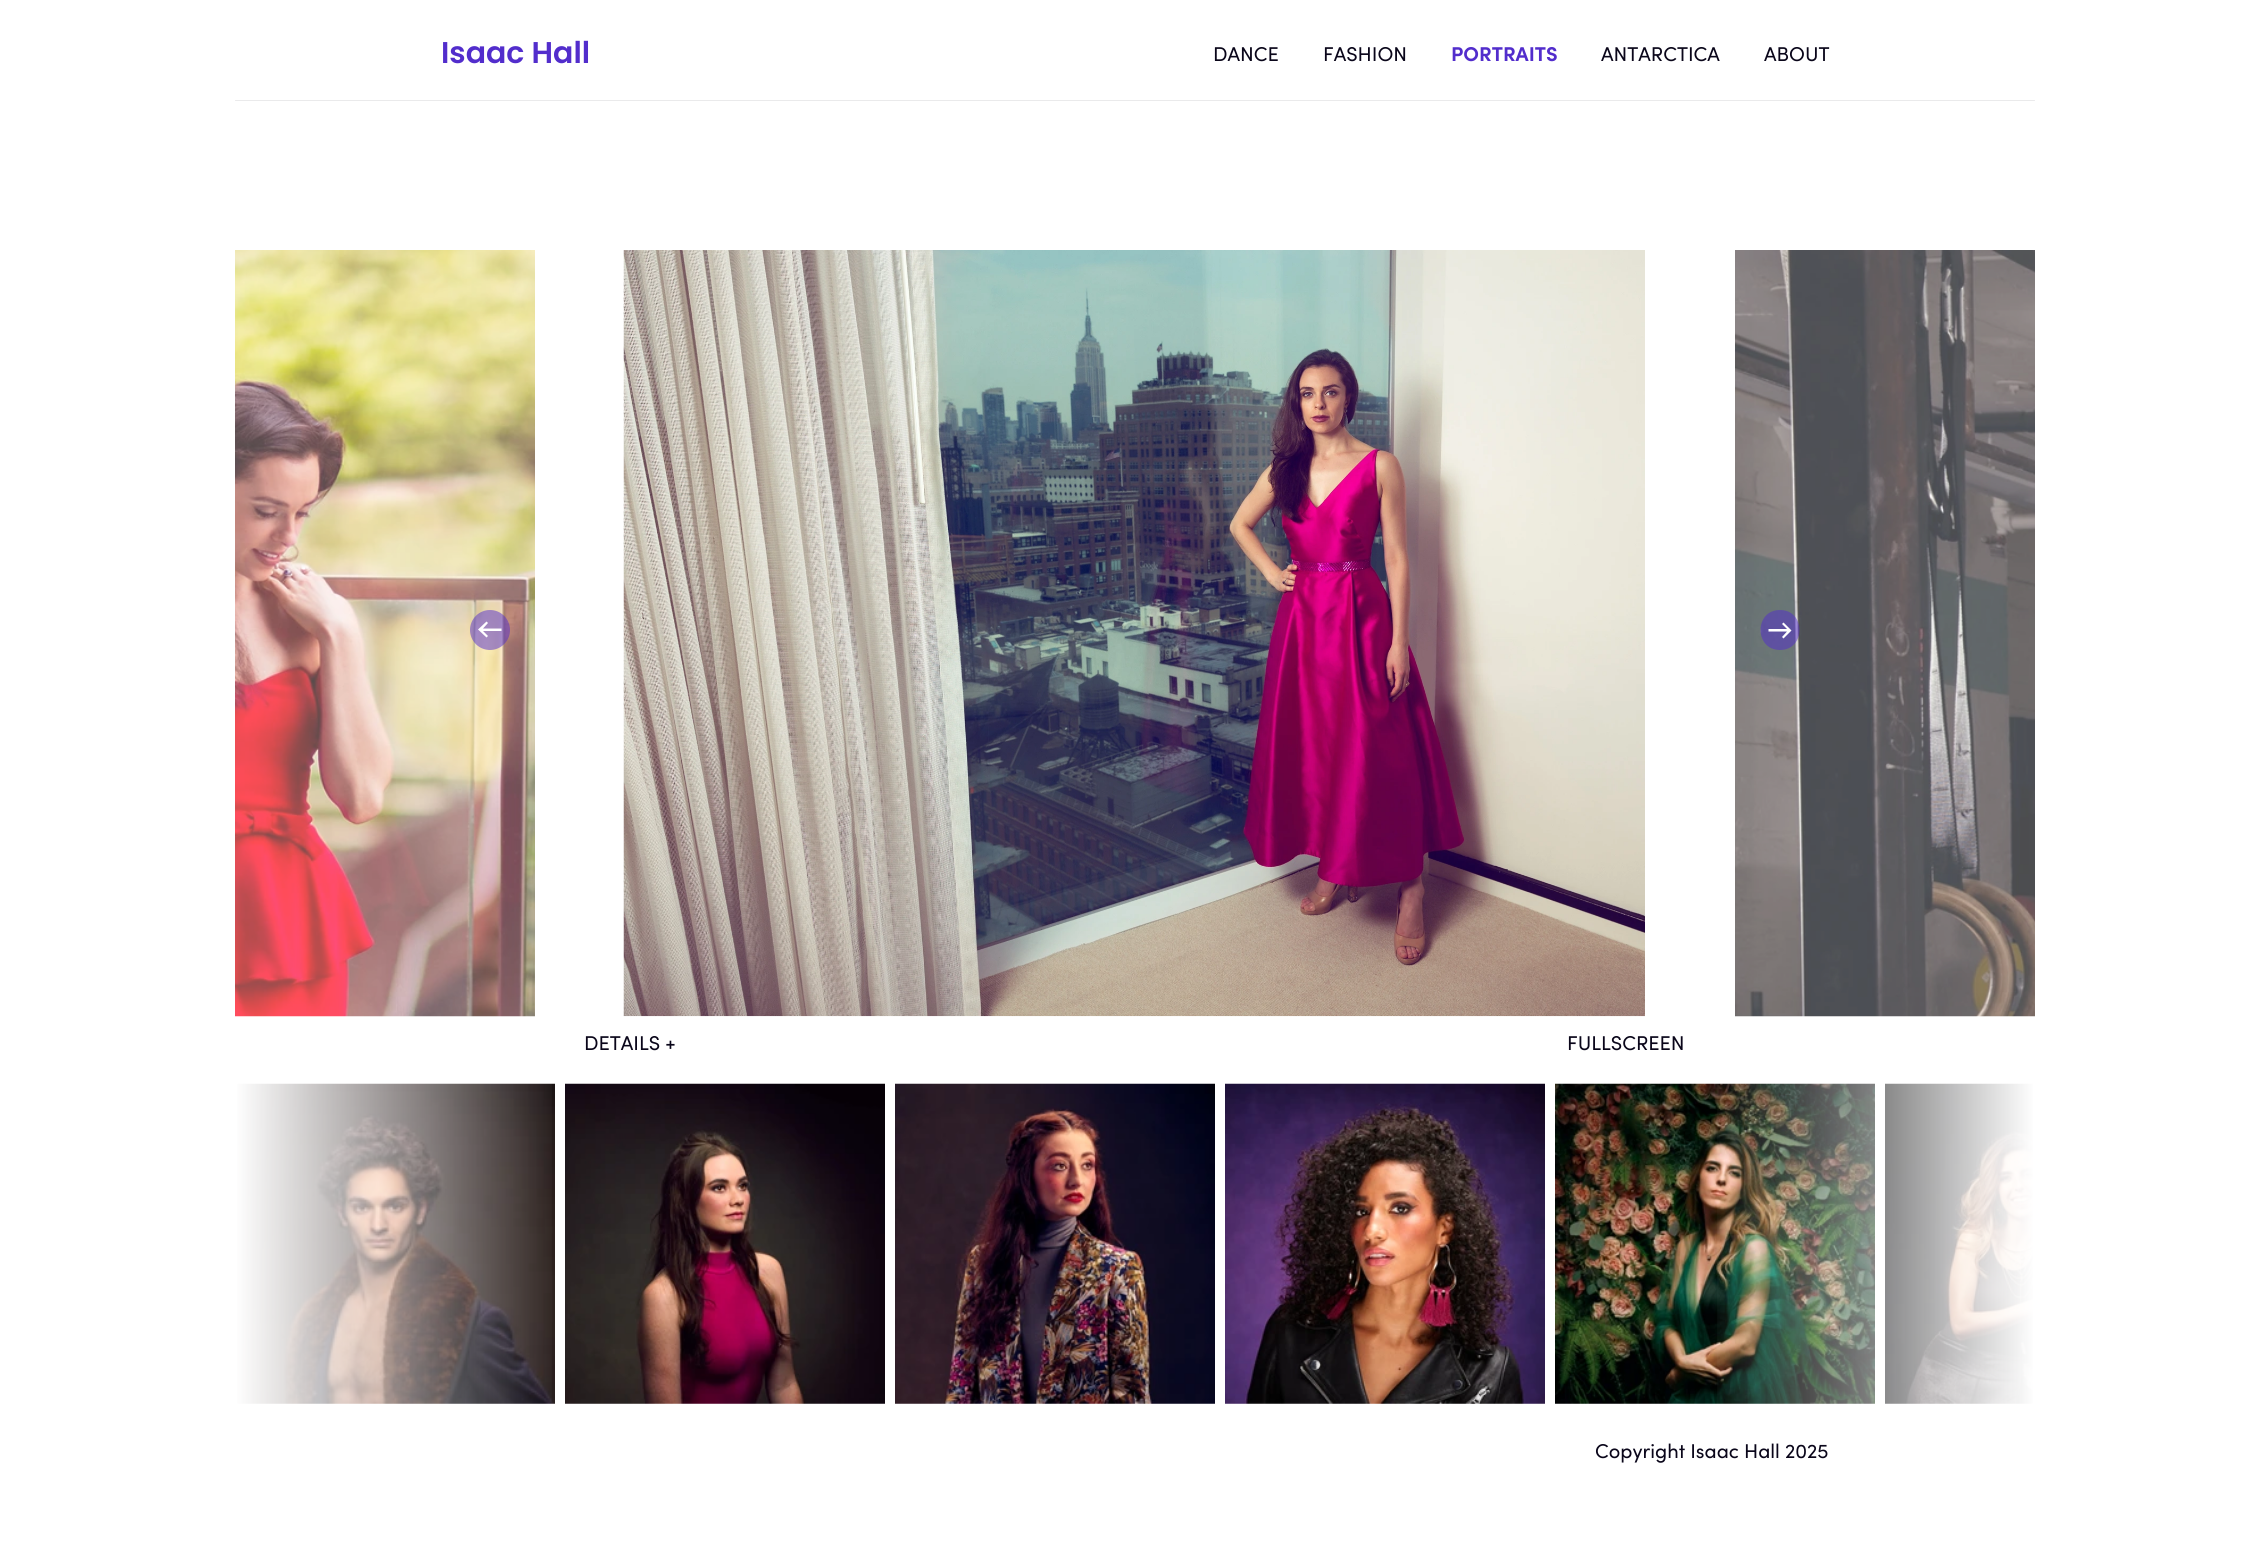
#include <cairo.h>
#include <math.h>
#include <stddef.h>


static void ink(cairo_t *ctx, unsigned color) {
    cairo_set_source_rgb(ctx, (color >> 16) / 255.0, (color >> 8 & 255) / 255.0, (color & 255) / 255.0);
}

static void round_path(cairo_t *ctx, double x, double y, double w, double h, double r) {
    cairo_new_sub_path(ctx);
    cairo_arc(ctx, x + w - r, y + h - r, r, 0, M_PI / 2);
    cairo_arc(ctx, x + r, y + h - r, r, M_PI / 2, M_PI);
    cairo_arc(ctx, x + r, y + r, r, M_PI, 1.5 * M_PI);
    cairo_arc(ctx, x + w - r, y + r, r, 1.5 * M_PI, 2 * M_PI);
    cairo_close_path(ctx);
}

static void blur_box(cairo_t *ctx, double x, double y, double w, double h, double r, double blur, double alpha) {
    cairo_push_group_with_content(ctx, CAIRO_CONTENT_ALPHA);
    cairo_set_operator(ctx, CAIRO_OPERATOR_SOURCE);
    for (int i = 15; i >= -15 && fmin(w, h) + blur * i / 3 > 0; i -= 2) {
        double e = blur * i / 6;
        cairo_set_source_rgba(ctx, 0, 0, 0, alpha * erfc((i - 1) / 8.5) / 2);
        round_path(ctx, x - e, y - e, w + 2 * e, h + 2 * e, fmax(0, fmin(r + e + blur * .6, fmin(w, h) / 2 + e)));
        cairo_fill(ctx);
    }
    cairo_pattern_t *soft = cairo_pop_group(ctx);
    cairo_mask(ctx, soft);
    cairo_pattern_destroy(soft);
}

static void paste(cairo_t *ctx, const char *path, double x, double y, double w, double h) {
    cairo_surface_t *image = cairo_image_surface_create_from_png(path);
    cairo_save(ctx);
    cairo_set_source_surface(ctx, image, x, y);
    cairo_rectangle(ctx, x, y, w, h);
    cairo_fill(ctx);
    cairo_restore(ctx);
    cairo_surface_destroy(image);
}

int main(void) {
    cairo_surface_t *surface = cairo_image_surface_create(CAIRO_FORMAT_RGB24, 2268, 1549);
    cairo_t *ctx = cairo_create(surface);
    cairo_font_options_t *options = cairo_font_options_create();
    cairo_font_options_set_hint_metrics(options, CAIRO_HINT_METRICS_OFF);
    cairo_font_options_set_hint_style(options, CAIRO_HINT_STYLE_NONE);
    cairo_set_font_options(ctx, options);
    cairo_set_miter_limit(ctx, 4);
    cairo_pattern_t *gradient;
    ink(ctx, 0xFFFFFF);
    cairo_paint(ctx);
    cairo_save(ctx);
    cairo_rectangle(ctx, 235, 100, 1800, 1);
    cairo_clip(ctx);
    ink(ctx, 0x0A061A);
    blur_box(ctx, 235, 1, 1800, 100, 0, 0.5, 0.1);
    cairo_restore(ctx);
    cairo_select_font_face(ctx, "Poppins SemiBold", CAIRO_FONT_SLANT_NORMAL, CAIRO_FONT_WEIGHT_NORMAL);
    cairo_set_font_size(ctx, 30);
    ink(ctx, 0x522DCC);
    cairo_move_to(ctx, 441, 63);
    cairo_show_text(ctx, "Isaac Hall");
    cairo_select_font_face(ctx, "Sofia", CAIRO_FONT_SLANT_NORMAL, CAIRO_FONT_WEIGHT_NORMAL);
    cairo_set_font_size(ctx, 20);
    ink(ctx, 0x0A061A);
    cairo_move_to(ctx, 1213, 61);
    cairo_show_text(ctx, "DANCE");
    cairo_move_to(ctx, 1323, 61);
    cairo_show_text(ctx, "FASHION");
    cairo_select_font_face(ctx, "Sofia", CAIRO_FONT_SLANT_NORMAL, CAIRO_FONT_WEIGHT_BOLD);
    ink(ctx, 0x522DCC);
    cairo_move_to(ctx, 1451, 61);
    cairo_show_text(ctx, "PORTRAITS");
    cairo_select_font_face(ctx, "Sofia", CAIRO_FONT_SLANT_NORMAL, CAIRO_FONT_WEIGHT_NORMAL);
    ink(ctx, 0x0A061A);
    cairo_move_to(ctx, 1601, 61);
    cairo_show_text(ctx, "ANTARCTICA");
    cairo_move_to(ctx, 1764, 61);
    cairo_show_text(ctx, "ABOUT");
    paste(ctx, "media/1.png", 235, 250, 300, 767);
    cairo_set_source_rgba(ctx, 0.322, 0.176, 0.8, 0.5);
    cairo_arc(ctx, 490, 630, 20, 0, 2 * M_PI);
    cairo_fill(ctx);
    ink(ctx, 0xFFFFFF);
    cairo_new_path(ctx);
    cairo_move_to(ctx, 501.5, 628.5);
    cairo_line_to(ctx, 501.5, 631);
    cairo_line_to(ctx, 483, 631);
    cairo_line_to(ctx, 488, 636);
    cairo_line_to(ctx, 486.5, 637.5);
    cairo_line_to(ctx, 478, 629.5);
    cairo_line_to(ctx, 486.5, 621.5);
    cairo_line_to(ctx, 488, 623);
    cairo_line_to(ctx, 483, 628.5);
    cairo_close_path(ctx);
    cairo_fill(ctx);
    paste(ctx, "media/2.png", 1735, 250, 300, 767);
    cairo_set_source_rgba(ctx, 0.322, 0.176, 0.8, 0.5);
    cairo_new_path(ctx);
    cairo_move_to(ctx, 1780, 650);
    cairo_curve_to(ctx, 1754, 650, 1754, 610, 1780, 610);
    cairo_curve_to(ctx, 1806, 610, 1806, 650, 1780, 650);
    cairo_close_path(ctx);
    cairo_fill(ctx);
    ink(ctx, 0xFFFFFF);
    cairo_new_path(ctx);
    cairo_move_to(ctx, 1768.5, 631.5);
    cairo_line_to(ctx, 1768.5, 629);
    cairo_line_to(ctx, 1787, 629);
    cairo_line_to(ctx, 1782, 624);
    cairo_line_to(ctx, 1783.5, 622.5);
    cairo_line_to(ctx, 1791.5, 630.5);
    cairo_line_to(ctx, 1783.5, 638.5);
    cairo_line_to(ctx, 1782, 637);
    cairo_line_to(ctx, 1787, 631.5);
    cairo_close_path(ctx);
    cairo_fill(ctx);
    paste(ctx, "media/3.png", 623, 250, 1022, 767);
    ink(ctx, 0x0A061A);
    cairo_move_to(ctx, 584, 1050);
    cairo_show_text(ctx, "DETAILS +");
    cairo_move_to(ctx, 1567, 1050);
    cairo_show_text(ctx, "FULLSCREEN");
    paste(ctx, "media/4.png", 237, 1083, 318, 321);
    paste(ctx, "media/5.png", 565, 1083, 320, 321);
    paste(ctx, "media/6.png", 895, 1083, 320, 321);
    paste(ctx, "media/7.png", 1225, 1083, 320, 321);
    paste(ctx, "media/8.png", 1555, 1083, 320, 321);
    paste(ctx, "media/9.png", 1885, 1083, 148, 321);
    gradient = cairo_pattern_create_linear(235, 1239, 559, 1239);
    cairo_pattern_add_color_stop_rgba(gradient, 0, 1, 1, 1, 1);
    cairo_pattern_add_color_stop_rgba(gradient, 1, 1, 1, 1, 0);
    cairo_set_source(ctx, gradient);
    cairo_pattern_destroy(gradient);
    cairo_rectangle(ctx, 237, 1083, 315, 321);
    cairo_fill(ctx);
    gradient = cairo_pattern_create_linear(2035, 1239, 1710, 1239);
    cairo_pattern_add_color_stop_rgba(gradient, 0, 1, 1, 1, 1);
    cairo_pattern_add_color_stop_rgba(gradient, 1, 1, 1, 1, 0);
    cairo_set_source(ctx, gradient);
    cairo_pattern_destroy(gradient);
    cairo_rectangle(ctx, 1717, 1083, 316, 321);
    cairo_fill(ctx);
    ink(ctx, 0x0A061A);
    cairo_move_to(ctx, 1595, 1458);
    cairo_show_text(ctx, "Copyright Isaac Hall 2025");
    cairo_surface_write_to_png(surface, "image.png");
    cairo_font_options_destroy(options);
    cairo_destroy(ctx);
    cairo_surface_destroy(surface);
    return 0;
}
